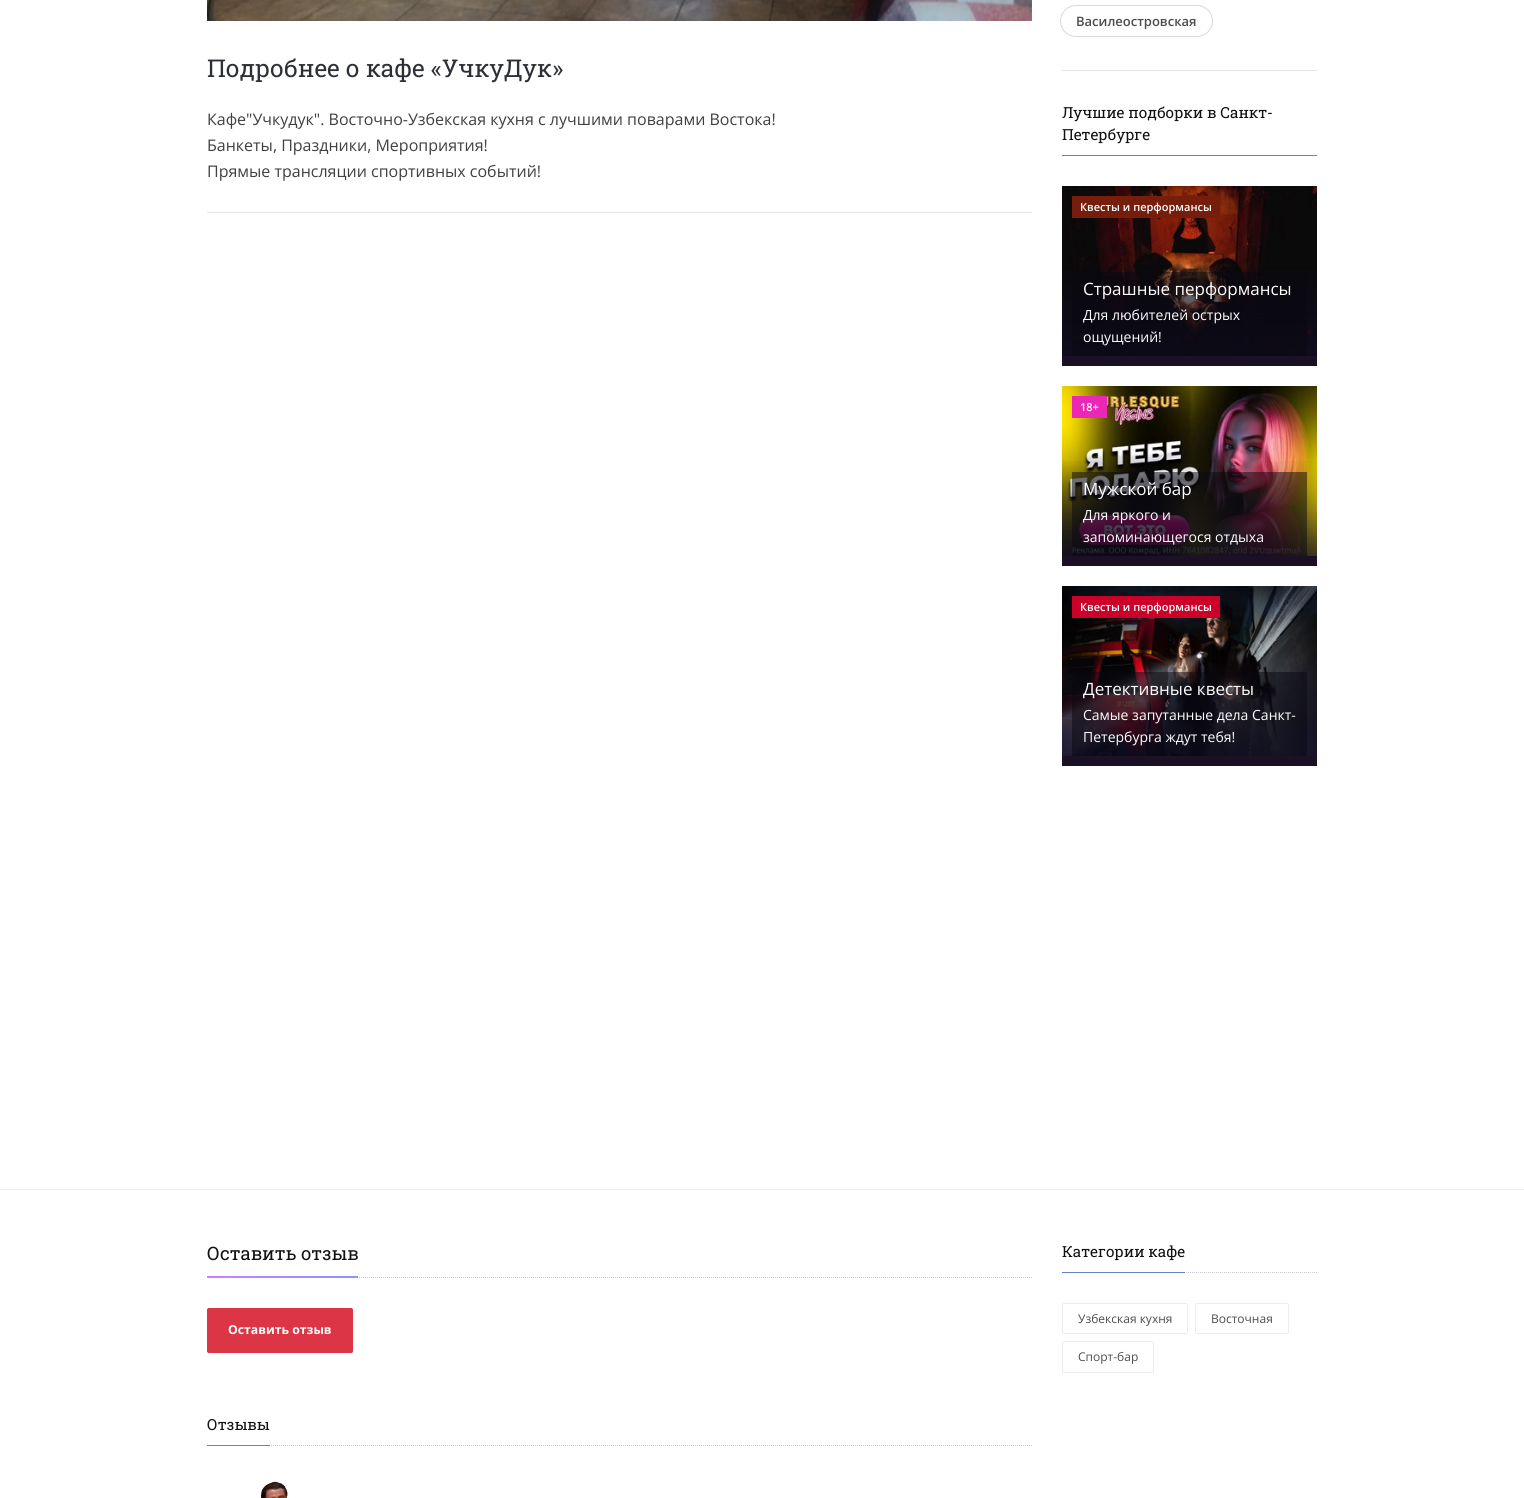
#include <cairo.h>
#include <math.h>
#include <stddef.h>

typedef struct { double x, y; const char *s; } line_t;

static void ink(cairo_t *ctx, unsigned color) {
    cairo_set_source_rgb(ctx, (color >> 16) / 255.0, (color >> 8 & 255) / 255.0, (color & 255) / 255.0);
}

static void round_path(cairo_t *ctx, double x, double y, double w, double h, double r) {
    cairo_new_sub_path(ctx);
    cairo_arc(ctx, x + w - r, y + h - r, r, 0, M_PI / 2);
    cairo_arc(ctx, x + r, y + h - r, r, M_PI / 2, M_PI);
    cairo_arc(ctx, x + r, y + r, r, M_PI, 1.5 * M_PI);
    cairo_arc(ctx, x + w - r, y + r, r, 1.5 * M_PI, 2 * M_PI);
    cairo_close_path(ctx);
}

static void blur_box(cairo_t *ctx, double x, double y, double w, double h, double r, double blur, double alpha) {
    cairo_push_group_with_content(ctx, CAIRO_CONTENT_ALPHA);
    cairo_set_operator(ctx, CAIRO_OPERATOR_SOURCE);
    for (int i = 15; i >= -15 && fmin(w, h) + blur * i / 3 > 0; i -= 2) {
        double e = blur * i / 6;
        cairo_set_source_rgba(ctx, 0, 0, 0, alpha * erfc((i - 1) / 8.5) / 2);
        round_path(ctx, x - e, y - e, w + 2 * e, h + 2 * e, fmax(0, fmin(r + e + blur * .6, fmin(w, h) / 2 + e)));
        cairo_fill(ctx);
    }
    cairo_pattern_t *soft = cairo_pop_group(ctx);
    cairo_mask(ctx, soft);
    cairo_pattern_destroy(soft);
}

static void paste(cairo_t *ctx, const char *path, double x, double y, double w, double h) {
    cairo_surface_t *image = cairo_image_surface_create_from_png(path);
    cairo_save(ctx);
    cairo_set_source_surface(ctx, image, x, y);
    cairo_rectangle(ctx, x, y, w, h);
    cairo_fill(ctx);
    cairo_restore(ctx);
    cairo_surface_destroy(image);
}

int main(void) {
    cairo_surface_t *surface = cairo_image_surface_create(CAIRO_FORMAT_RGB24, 1524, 1498);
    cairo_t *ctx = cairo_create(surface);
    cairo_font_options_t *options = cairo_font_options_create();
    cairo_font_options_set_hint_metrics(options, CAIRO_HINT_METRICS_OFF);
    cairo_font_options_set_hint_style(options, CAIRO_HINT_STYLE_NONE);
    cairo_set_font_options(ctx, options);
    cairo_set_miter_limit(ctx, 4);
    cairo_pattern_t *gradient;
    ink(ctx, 0xFFFFFF);
    cairo_paint(ctx);
    paste(ctx, "media/1.png", 207, 0, 825, 21);
    cairo_select_font_face(ctx, "Roboto Slab", CAIRO_FONT_SLANT_NORMAL, CAIRO_FONT_WEIGHT_NORMAL);
    cairo_set_font_size(ctx, 24.5);
    ink(ctx, 0x2C2F37);
    cairo_move_to(ctx, 207, 77);
    cairo_show_text(ctx, "Подробнее о кафе «УчкуДук»");
    cairo_select_font_face(ctx, "Open Sans", CAIRO_FONT_SLANT_NORMAL, CAIRO_FONT_WEIGHT_NORMAL);
    cairo_set_font_size(ctx, 16);
    ink(ctx, 0x404040);
    {
        static const line_t items[] = {
            {207, 125, "Кафе\"Учкудук\". Восточно-Узбекская кухня с лучшими поварами Востока!"},
            {207, 151, "Банкеты, Праздники, Мероприятия!"},
            {207, 177, "Прямые трансляции спортивных событий!"},
        };
        for (size_t i = 0; i < sizeof items / sizeof *items; i++) {
            cairo_move_to(ctx, items[i].x, items[i].y);
            cairo_show_text(ctx, items[i].s);
        }
    }
    ink(ctx, 0xE6E6E6);
    cairo_rectangle(ctx, 207, 212, 825, 1);
    cairo_fill(ctx);
    round_path(ctx, 1060.5, 5.5, 152, 31, 15.5);
    ink(ctx, 0xD9D9D9);
    cairo_set_line_width(ctx, 1);
    cairo_stroke(ctx);
    cairo_select_font_face(ctx, "Open Sans SemiBold", CAIRO_FONT_SLANT_NORMAL, CAIRO_FONT_WEIGHT_NORMAL);
    cairo_set_font_size(ctx, 13);
    ink(ctx, 0x4D4D4D);
    cairo_move_to(ctx, 1076, 26);
    cairo_show_text(ctx, "Василеостровская");
    ink(ctx, 0xE6E6E6);
    cairo_rectangle(ctx, 1062, 70, 255, 1);
    cairo_fill(ctx);
    ink(ctx, 0x6281C8);
    cairo_rectangle(ctx, 1062, 155, 255, 1);
    cairo_fill(ctx);
    cairo_select_font_face(ctx, "Roboto Slab", CAIRO_FONT_SLANT_NORMAL, CAIRO_FONT_WEIGHT_NORMAL);
    cairo_set_font_size(ctx, 15.25);
    ink(ctx, 0x111111);
    cairo_move_to(ctx, 1062, 118);
    cairo_show_text(ctx, "Лучшие подборки в Санкт-");
    cairo_move_to(ctx, 1062, 140);
    cairo_show_text(ctx, "Петербурге");
    ink(ctx, 0x3B1C23);
    cairo_rectangle(ctx, 1062, 356, 255, 10);
    cairo_fill(ctx);
    cairo_save(ctx);
    cairo_rectangle(ctx, 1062, 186, 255, 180);
    cairo_clip(ctx);
    ink(ctx, 0x000000);
    blur_box(ctx, 1062, 191, 255, 170, 0, 10, 0.07);
    cairo_restore(ctx);
    paste(ctx, "media/2.png", 1062, 186, 255, 170);
    gradient = cairo_pattern_create_linear(1190, 186, 1190, 366);
    cairo_pattern_add_color_stop_rgba(gradient, 0, 0, 0, 0, 0);
    cairo_pattern_add_color_stop_rgba(gradient, 0.4, 0.067, 0.051, 0.149, 0);
    cairo_pattern_add_color_stop_rgba(gradient, 1, 0.067, 0.051, 0.149, 0.8);
    cairo_set_source(ctx, gradient);
    cairo_pattern_destroy(gradient);
    cairo_rectangle(ctx, 1062, 261, 255, 105);
    cairo_fill(ctx);
    ink(ctx, 0x761D0B);
    cairo_rectangle(ctx, 1072, 196, 148, 22);
    cairo_fill(ctx);
    cairo_select_font_face(ctx, "Open Sans SemiBold", CAIRO_FONT_SLANT_NORMAL, CAIRO_FONT_WEIGHT_NORMAL);
    cairo_set_font_size(ctx, 11);
    ink(ctx, 0xFFFFFF);
    cairo_move_to(ctx, 1080, 211);
    cairo_show_text(ctx, "Квесты и перформансы");
    cairo_set_source_rgba(ctx, 0.039, 0.039, 0.063, 0.5);
    cairo_rectangle(ctx, 1072, 272, 235, 84);
    cairo_fill(ctx);
    cairo_select_font_face(ctx, "Open Sans", CAIRO_FONT_SLANT_NORMAL, CAIRO_FONT_WEIGHT_NORMAL);
    cairo_set_font_size(ctx, 17);
    ink(ctx, 0xFFFFFF);
    cairo_move_to(ctx, 1083, 295);
    cairo_show_text(ctx, "Страшные перформансы");
    cairo_set_font_size(ctx, 14);
    cairo_move_to(ctx, 1083, 320);
    cairo_show_text(ctx, "Для любителей острых");
    cairo_move_to(ctx, 1083, 342);
    cairo_show_text(ctx, "ощущений!");
    ink(ctx, 0x3B1C23);
    cairo_rectangle(ctx, 1062, 556, 255, 10);
    cairo_fill(ctx);
    cairo_save(ctx);
    cairo_rectangle(ctx, 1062, 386, 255, 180);
    cairo_clip(ctx);
    ink(ctx, 0x000000);
    blur_box(ctx, 1062, 391, 255, 170, 0, 10, 0.07);
    cairo_restore(ctx);
    paste(ctx, "media/3.png", 1062, 386, 255, 170);
    gradient = cairo_pattern_create_linear(1190, 386, 1190, 566);
    cairo_pattern_add_color_stop_rgba(gradient, 0, 0, 0, 0, 0);
    cairo_pattern_add_color_stop_rgba(gradient, 0.4, 0.067, 0.051, 0.149, 0);
    cairo_pattern_add_color_stop_rgba(gradient, 1, 0.067, 0.051, 0.149, 0.8);
    cairo_set_source(ctx, gradient);
    cairo_pattern_destroy(gradient);
    cairo_rectangle(ctx, 1062, 461, 255, 105);
    cairo_fill(ctx);
    ink(ctx, 0xEC27B8);
    cairo_rectangle(ctx, 1072, 396, 35, 22);
    cairo_fill(ctx);
    cairo_select_font_face(ctx, "Open Sans SemiBold", CAIRO_FONT_SLANT_NORMAL, CAIRO_FONT_WEIGHT_NORMAL);
    cairo_set_font_size(ctx, 11);
    ink(ctx, 0xFFFFFF);
    cairo_move_to(ctx, 1080, 411);
    cairo_show_text(ctx, "18+");
    cairo_set_source_rgba(ctx, 0.039, 0.039, 0.063, 0.5);
    cairo_rectangle(ctx, 1072, 472, 235, 84);
    cairo_fill(ctx);
    cairo_select_font_face(ctx, "Open Sans", CAIRO_FONT_SLANT_NORMAL, CAIRO_FONT_WEIGHT_NORMAL);
    cairo_set_font_size(ctx, 17);
    ink(ctx, 0xFFFFFF);
    cairo_move_to(ctx, 1083, 495);
    cairo_show_text(ctx, "Мужской бар");
    cairo_set_font_size(ctx, 14);
    cairo_move_to(ctx, 1083, 520);
    cairo_show_text(ctx, "Для яркого и");
    cairo_move_to(ctx, 1083, 542);
    cairo_show_text(ctx, "запоминающегося отдыха");
    ink(ctx, 0x3B1C23);
    cairo_rectangle(ctx, 1062, 756, 255, 10);
    cairo_fill(ctx);
    cairo_save(ctx);
    cairo_rectangle(ctx, 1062, 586, 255, 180);
    cairo_clip(ctx);
    ink(ctx, 0x000000);
    blur_box(ctx, 1062, 591, 255, 170, 0, 10, 0.07);
    cairo_restore(ctx);
    paste(ctx, "media/4.png", 1062, 586, 255, 170);
    gradient = cairo_pattern_create_linear(1190, 586, 1190, 766);
    cairo_pattern_add_color_stop_rgba(gradient, 0, 0, 0, 0, 0);
    cairo_pattern_add_color_stop_rgba(gradient, 0.4, 0.067, 0.051, 0.149, 0);
    cairo_pattern_add_color_stop_rgba(gradient, 1, 0.067, 0.051, 0.149, 0.8);
    cairo_set_source(ctx, gradient);
    cairo_pattern_destroy(gradient);
    cairo_rectangle(ctx, 1062, 661, 255, 105);
    cairo_fill(ctx);
    ink(ctx, 0xCB0129);
    cairo_rectangle(ctx, 1072, 596, 148, 22);
    cairo_fill(ctx);
    cairo_select_font_face(ctx, "Open Sans SemiBold", CAIRO_FONT_SLANT_NORMAL, CAIRO_FONT_WEIGHT_NORMAL);
    cairo_set_font_size(ctx, 11);
    ink(ctx, 0xFFFFFF);
    cairo_move_to(ctx, 1080, 611);
    cairo_show_text(ctx, "Квесты и перформансы");
    cairo_set_source_rgba(ctx, 0.039, 0.039, 0.063, 0.5);
    cairo_rectangle(ctx, 1072, 672, 235, 84);
    cairo_fill(ctx);
    cairo_select_font_face(ctx, "Open Sans", CAIRO_FONT_SLANT_NORMAL, CAIRO_FONT_WEIGHT_NORMAL);
    cairo_set_font_size(ctx, 17);
    ink(ctx, 0xFFFFFF);
    cairo_move_to(ctx, 1083, 695);
    cairo_show_text(ctx, "Детективные квесты");
    cairo_set_font_size(ctx, 14);
    cairo_move_to(ctx, 1083, 720);
    cairo_show_text(ctx, "Самые запутанные дела Санкт-");
    cairo_move_to(ctx, 1083, 742);
    cairo_show_text(ctx, "Петербурга ждут тебя!");
    ink(ctx, 0xEEEEEE);
    cairo_rectangle(ctx, 0, 1189, 1524, 1);
    cairo_fill(ctx);
    cairo_new_path(ctx);
    cairo_move_to(ctx, 207, 1277.5);
    cairo_line_to(ctx, 1032, 1277.5);
    ink(ctx, 0xCCCCCC);
    cairo_set_dash(ctx, (double[]){1, 1}, 2, 0);
    cairo_stroke(ctx);
    paste(ctx, "media/5.png", 207, 1276, 151, 2);
    cairo_select_font_face(ctx, "Roboto Slab", CAIRO_FONT_SLANT_NORMAL, CAIRO_FONT_WEIGHT_NORMAL);
    cairo_set_font_size(ctx, 18.5);
    ink(ctx, 0x111111);
    cairo_move_to(ctx, 207, 1260);
    cairo_show_text(ctx, "Оставить отзыв");
    ink(ctx, 0xDC3545);
    round_path(ctx, 207.5, 1308.5, 145, 44, 1.5);
    cairo_fill_preserve(ctx);
    cairo_set_dash(ctx, NULL, 0, 0);
    cairo_stroke(ctx);
    cairo_select_font_face(ctx, "Open Sans", CAIRO_FONT_SLANT_NORMAL, CAIRO_FONT_WEIGHT_BOLD);
    cairo_set_font_size(ctx, 12.25);
    ink(ctx, 0xFFFFFF);
    cairo_move_to(ctx, 228, 1334);
    cairo_show_text(ctx, "Оставить отзыв");
    cairo_new_path(ctx);
    cairo_move_to(ctx, 207, 1445.5);
    cairo_line_to(ctx, 1032, 1445.5);
    ink(ctx, 0xCCCCCC);
    cairo_set_dash(ctx, (double[]){1, 1}, 2, 0);
    cairo_stroke(ctx);
    ink(ctx, 0x6281C8);
    cairo_rectangle(ctx, 207, 1445, 63, 1);
    cairo_fill(ctx);
    cairo_select_font_face(ctx, "Roboto Slab", CAIRO_FONT_SLANT_NORMAL, CAIRO_FONT_WEIGHT_NORMAL);
    cairo_set_font_size(ctx, 15.25);
    ink(ctx, 0x111111);
    cairo_move_to(ctx, 207, 1430);
    cairo_show_text(ctx, "Отзывы");
    paste(ctx, "media/6.png", 261, 1481, 27, 17);
    cairo_new_path(ctx);
    cairo_move_to(ctx, 1062, 1272.5);
    cairo_line_to(ctx, 1317, 1272.5);
    ink(ctx, 0xCCCCCC);
    cairo_stroke(ctx);
    ink(ctx, 0x6281C8);
    cairo_rectangle(ctx, 1062, 1272, 123, 1);
    cairo_fill(ctx);
    ink(ctx, 0x111111);
    cairo_move_to(ctx, 1062, 1257);
    cairo_show_text(ctx, "Категории кафе");
    round_path(ctx, 1062.5, 1303.5, 125, 30, 1.5);
    ink(ctx, 0xEDEDED);
    cairo_set_dash(ctx, NULL, 0, 0);
    cairo_stroke(ctx);
    cairo_select_font_face(ctx, "Open Sans", CAIRO_FONT_SLANT_NORMAL, CAIRO_FONT_WEIGHT_NORMAL);
    cairo_set_font_size(ctx, 12);
    ink(ctx, 0x4D4D4D);
    cairo_move_to(ctx, 1078, 1323);
    cairo_show_text(ctx, "Узбекская кухня");
    round_path(ctx, 1195.5, 1303.5, 93, 30, 1.5);
    ink(ctx, 0xEDEDED);
    cairo_stroke(ctx);
    ink(ctx, 0x4D4D4D);
    cairo_move_to(ctx, 1211, 1323);
    cairo_show_text(ctx, "Восточная");
    round_path(ctx, 1062.5, 1341.5, 91, 31, 1.5);
    ink(ctx, 0xEDEDED);
    cairo_stroke(ctx);
    ink(ctx, 0x4D4D4D);
    cairo_move_to(ctx, 1078, 1361);
    cairo_show_text(ctx, "Спорт-бар");
    cairo_surface_write_to_png(surface, "image.png");
    cairo_font_options_destroy(options);
    cairo_destroy(ctx);
    cairo_surface_destroy(surface);
    return 0;
}
